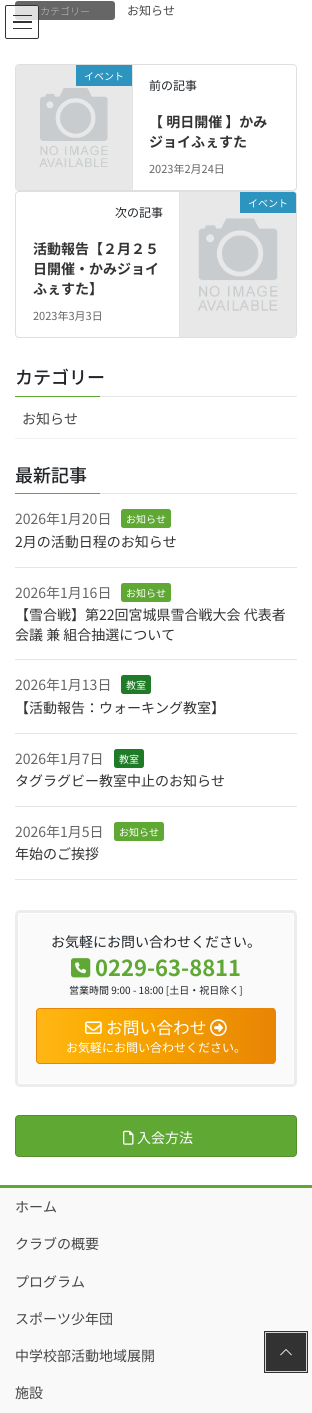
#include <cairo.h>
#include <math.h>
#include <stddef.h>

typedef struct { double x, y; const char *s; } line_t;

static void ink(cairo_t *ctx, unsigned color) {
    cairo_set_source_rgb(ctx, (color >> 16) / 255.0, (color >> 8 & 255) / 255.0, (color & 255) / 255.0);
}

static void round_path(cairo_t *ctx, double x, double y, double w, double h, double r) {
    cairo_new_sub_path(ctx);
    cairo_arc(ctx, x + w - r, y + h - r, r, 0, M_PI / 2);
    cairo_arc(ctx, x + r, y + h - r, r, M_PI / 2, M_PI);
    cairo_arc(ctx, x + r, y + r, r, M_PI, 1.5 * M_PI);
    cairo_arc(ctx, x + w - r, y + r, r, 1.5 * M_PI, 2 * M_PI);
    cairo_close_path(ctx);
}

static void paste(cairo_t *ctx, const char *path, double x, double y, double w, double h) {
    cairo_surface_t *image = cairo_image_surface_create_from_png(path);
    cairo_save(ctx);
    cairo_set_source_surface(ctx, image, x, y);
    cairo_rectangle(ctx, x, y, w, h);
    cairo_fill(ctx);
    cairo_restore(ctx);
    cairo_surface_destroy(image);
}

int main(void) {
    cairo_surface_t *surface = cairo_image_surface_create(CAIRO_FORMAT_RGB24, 312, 1413);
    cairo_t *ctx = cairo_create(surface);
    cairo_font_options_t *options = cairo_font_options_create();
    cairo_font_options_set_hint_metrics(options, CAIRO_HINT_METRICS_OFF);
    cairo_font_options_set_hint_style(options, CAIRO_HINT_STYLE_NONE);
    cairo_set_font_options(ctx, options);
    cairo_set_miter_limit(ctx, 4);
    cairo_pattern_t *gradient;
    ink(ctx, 0xFFFFFF);
    cairo_paint(ctx);
    ink(ctx, 0x666666);
    round_path(ctx, 15, 1, 100, 19, 3);
    cairo_fill(ctx);
    cairo_select_font_face(ctx, "Noto Sans JP Thin", CAIRO_FONT_SLANT_NORMAL, CAIRO_FONT_WEIGHT_NORMAL);
    cairo_set_font_size(ctx, 10);
    ink(ctx, 0xFFFFFF);
    cairo_move_to(ctx, 40, 15);
    cairo_show_text(ctx, "カテゴリー");
    cairo_select_font_face(ctx, "Noto Sans JP", CAIRO_FONT_SLANT_NORMAL, CAIRO_FONT_WEIGHT_NORMAL);
    cairo_set_font_size(ctx, 12);
    ink(ctx, 0x464646);
    cairo_move_to(ctx, 127, 15);
    cairo_show_text(ctx, "お知らせ");
    round_path(ctx, 15.5, 64.5, 281, 126, 3.5);
    ink(ctx, 0xDFDFDF);
    cairo_set_line_width(ctx, 1);
    cairo_stroke(ctx);
    paste(ctx, "media/1.png", 16, 65, 116, 125);
    ink(ctx, 0xE5E5E5);
    cairo_rectangle(ctx, 132, 65, 1, 125);
    cairo_fill(ctx);
    ink(ctx, 0x2D93BF);
    cairo_rectangle(ctx, 76, 65, 56, 21);
    cairo_fill(ctx);
    cairo_set_font_size(ctx, 10);
    ink(ctx, 0xFFFFFF);
    cairo_move_to(ctx, 84, 80);
    cairo_show_text(ctx, "イベント");
    cairo_set_font_size(ctx, 12);
    ink(ctx, 0x212529);
    cairo_move_to(ctx, 149, 90);
    cairo_show_text(ctx, "前の記事");
    cairo_select_font_face(ctx, "Noto Sans JP", CAIRO_FONT_SLANT_NORMAL, CAIRO_FONT_WEIGHT_BOLD);
    cairo_set_font_size(ctx, 14);
    ink(ctx, 0x333333);
    cairo_move_to(ctx, 149, 127);
    cairo_show_text(ctx, "【 明日開催 】かみ");
    cairo_move_to(ctx, 149, 147);
    cairo_show_text(ctx, "ジョイふぇすた");
    cairo_select_font_face(ctx, "Noto Sans JP", CAIRO_FONT_SLANT_NORMAL, CAIRO_FONT_WEIGHT_NORMAL);
    cairo_set_font_size(ctx, 11);
    ink(ctx, 0x666666);
    cairo_move_to(ctx, 149, 173);
    cairo_show_text(ctx, "2023年2月24日");
    round_path(ctx, 15.5, 191.5, 281, 146, 3.5);
    ink(ctx, 0xDFDFDF);
    cairo_stroke(ctx);
    paste(ctx, "media/2.png", 180, 192, 116, 145);
    ink(ctx, 0xE5E5E5);
    cairo_rectangle(ctx, 179, 192, 1, 145);
    cairo_fill(ctx);
    ink(ctx, 0x2D93BF);
    cairo_new_path(ctx);
    cairo_move_to(ctx, 240, 192);
    cairo_line_to(ctx, 293.5, 192);
    cairo_curve_to(ctx, 295, 192, 296, 193, 296, 194.5);
    cairo_line_to(ctx, 296, 213);
    cairo_line_to(ctx, 240, 213);
    cairo_close_path(ctx);
    cairo_fill(ctx);
    cairo_set_font_size(ctx, 10);
    ink(ctx, 0xFFFFFF);
    cairo_move_to(ctx, 248, 207);
    cairo_show_text(ctx, "イベント");
    cairo_set_font_size(ctx, 12);
    ink(ctx, 0x212529);
    cairo_move_to(ctx, 115, 217);
    cairo_show_text(ctx, "次の記事");
    cairo_select_font_face(ctx, "Noto Sans JP", CAIRO_FONT_SLANT_NORMAL, CAIRO_FONT_WEIGHT_BOLD);
    cairo_set_font_size(ctx, 14);
    ink(ctx, 0x333333);
    {
        static const line_t items[] = {
            {33, 254, "活動報告【２月２５"},
            {33, 274, "日開催・かみジョイ"},
            {33, 294, "ふぇすた】"},
        };
        for (size_t i = 0; i < sizeof items / sizeof *items; i++) {
            cairo_move_to(ctx, items[i].x, items[i].y);
            cairo_show_text(ctx, items[i].s);
        }
    }
    cairo_select_font_face(ctx, "Noto Sans JP", CAIRO_FONT_SLANT_NORMAL, CAIRO_FONT_WEIGHT_NORMAL);
    cairo_set_font_size(ctx, 11);
    ink(ctx, 0x666666);
    cairo_move_to(ctx, 33, 320);
    cairo_show_text(ctx, "2023年3月3日");
    ink(ctx, 0xE6E6E6);
    cairo_rectangle(ctx, 100, 396, 197, 1);
    cairo_fill(ctx);
    cairo_select_font_face(ctx, "Noto Sans JP Medium", CAIRO_FONT_SLANT_NORMAL, CAIRO_FONT_WEIGHT_NORMAL);
    cairo_set_font_size(ctx, 18);
    ink(ctx, 0x212529);
    cairo_move_to(ctx, 15, 384);
    cairo_show_text(ctx, "カテゴリー");
    ink(ctx, 0x60A834);
    cairo_rectangle(ctx, 15, 396, 85, 1);
    cairo_fill(ctx);
    ink(ctx, 0xF2F2F2);
    cairo_rectangle(ctx, 15, 438, 282, 1);
    cairo_fill(ctx);
    cairo_select_font_face(ctx, "Noto Sans JP", CAIRO_FONT_SLANT_NORMAL, CAIRO_FONT_WEIGHT_NORMAL);
    cairo_set_font_size(ctx, 14);
    ink(ctx, 0x464646);
    cairo_move_to(ctx, 22, 424);
    cairo_show_text(ctx, "お知らせ");
    ink(ctx, 0xE6E6E6);
    cairo_rectangle(ctx, 100, 493, 197, 1);
    cairo_fill(ctx);
    cairo_select_font_face(ctx, "Noto Sans JP Medium", CAIRO_FONT_SLANT_NORMAL, CAIRO_FONT_WEIGHT_NORMAL);
    cairo_set_font_size(ctx, 18);
    ink(ctx, 0x212529);
    cairo_move_to(ctx, 15, 482);
    cairo_show_text(ctx, "最新記事");
    ink(ctx, 0x60A834);
    cairo_rectangle(ctx, 15, 493, 85, 1);
    cairo_fill(ctx);
    ink(ctx, 0xE5E5E5);
    cairo_rectangle(ctx, 15, 567, 282, 1);
    cairo_fill(ctx);
    cairo_select_font_face(ctx, "Noto Sans JP", CAIRO_FONT_SLANT_NORMAL, CAIRO_FONT_WEIGHT_NORMAL);
    cairo_set_font_size(ctx, 14);
    ink(ctx, 0x666666);
    cairo_move_to(ctx, 15, 524);
    cairo_show_text(ctx, "2026年1月20日");
    ink(ctx, 0x60A834);
    round_path(ctx, 121, 509, 50, 19, 2.5);
    cairo_fill(ctx);
    cairo_set_font_size(ctx, 10);
    ink(ctx, 0xFFFFFF);
    cairo_move_to(ctx, 126, 523);
    cairo_show_text(ctx, "お知らせ");
    cairo_set_font_size(ctx, 14);
    ink(ctx, 0x333333);
    cairo_move_to(ctx, 15, 547);
    cairo_show_text(ctx, "2月の活動日程のお知らせ");
    ink(ctx, 0xE5E5E5);
    cairo_rectangle(ctx, 15, 659, 282, 1);
    cairo_fill(ctx);
    ink(ctx, 0x666666);
    cairo_move_to(ctx, 15, 598);
    cairo_show_text(ctx, "2026年1月16日");
    ink(ctx, 0x60A834);
    round_path(ctx, 121, 583, 50, 19, 2.5);
    cairo_fill(ctx);
    cairo_set_font_size(ctx, 10);
    ink(ctx, 0xFFFFFF);
    cairo_move_to(ctx, 126, 597);
    cairo_show_text(ctx, "お知らせ");
    cairo_set_font_size(ctx, 14);
    ink(ctx, 0x333333);
    cairo_move_to(ctx, 15, 620);
    cairo_show_text(ctx, "【雪合戦】第22回宮城県雪合戦大会 代表者");
    cairo_move_to(ctx, 15, 640);
    cairo_show_text(ctx, "会議 兼 組合抽選について");
    ink(ctx, 0xE5E5E5);
    cairo_rectangle(ctx, 15, 733, 282, 1);
    cairo_fill(ctx);
    ink(ctx, 0x666666);
    cairo_move_to(ctx, 15, 690);
    cairo_show_text(ctx, "2026年1月13日");
    ink(ctx, 0x1F7B27);
    round_path(ctx, 121, 675, 30, 19, 2.5);
    cairo_fill(ctx);
    cairo_set_font_size(ctx, 10);
    ink(ctx, 0xFFFFFF);
    cairo_move_to(ctx, 126, 689);
    cairo_show_text(ctx, "教室");
    cairo_set_font_size(ctx, 14);
    ink(ctx, 0x333333);
    cairo_move_to(ctx, 15, 713);
    cairo_show_text(ctx, "【活動報告：ウォーキング教室】");
    ink(ctx, 0xE5E5E5);
    cairo_rectangle(ctx, 15, 806, 282, 1);
    cairo_fill(ctx);
    ink(ctx, 0x666666);
    cairo_move_to(ctx, 15, 764);
    cairo_show_text(ctx, "2026年1月7日");
    ink(ctx, 0x1F7B27);
    round_path(ctx, 114, 749, 30, 19, 2.5);
    cairo_fill(ctx);
    cairo_set_font_size(ctx, 10);
    ink(ctx, 0xFFFFFF);
    cairo_move_to(ctx, 119, 763);
    cairo_show_text(ctx, "教室");
    cairo_set_font_size(ctx, 14);
    ink(ctx, 0x333333);
    cairo_move_to(ctx, 15, 786);
    cairo_show_text(ctx, "タグラグビー教室中止のお知らせ");
    ink(ctx, 0xE5E5E5);
    cairo_rectangle(ctx, 15, 879, 282, 1);
    cairo_fill(ctx);
    ink(ctx, 0x666666);
    cairo_move_to(ctx, 15, 837);
    cairo_show_text(ctx, "2026年1月5日");
    ink(ctx, 0x60A834);
    round_path(ctx, 114, 822, 50, 19, 2.5);
    cairo_fill(ctx);
    cairo_set_font_size(ctx, 10);
    ink(ctx, 0xFFFFFF);
    cairo_move_to(ctx, 119, 836);
    cairo_show_text(ctx, "お知らせ");
    cairo_set_font_size(ctx, 14);
    ink(ctx, 0x333333);
    cairo_move_to(ctx, 15, 859);
    cairo_show_text(ctx, "年始のご挨拶");
    round_path(ctx, 16.5, 911.5, 279, 174, 3.5);
    ink(ctx, 0xEDEDED);
    cairo_set_line_width(ctx, 3);
    cairo_stroke(ctx);
    ink(ctx, 0xFAFAFA);
    round_path(ctx, 18, 913, 276, 171, 2);
    cairo_fill(ctx);
    ink(ctx, 0xFEFEFE);
    cairo_set_fill_rule(ctx, CAIRO_FILL_RULE_EVEN_ODD);
    cairo_new_path(ctx);
    cairo_move_to(ctx, 20, 913);
    cairo_curve_to(ctx, 19, 913, 18, 914, 18, 915);
    cairo_line_to(ctx, 18, 1082);
    cairo_curve_to(ctx, 18, 1083, 19, 1084, 20, 1084);
    cairo_line_to(ctx, 292, 1084);
    cairo_curve_to(ctx, 293, 1084, 294, 1083, 294, 1082);
    cairo_line_to(ctx, 294, 915);
    cairo_curve_to(ctx, 294, 914, 293, 913, 292, 913);
    cairo_close_path(ctx);
    cairo_move_to(ctx, 19, 914);
    cairo_line_to(ctx, 19, 1083);
    cairo_line_to(ctx, 293, 1083);
    cairo_line_to(ctx, 293, 914);
    cairo_close_path(ctx);
    cairo_fill(ctx);
    ink(ctx, 0x212529);
    cairo_move_to(ctx, 51, 947);
    cairo_show_text(ctx, "お気軽にお問い合わせください。");
    paste(ctx, "media/3.png", 71, 958, 20, 20);
    cairo_select_font_face(ctx, "Noto Sans JP", CAIRO_FONT_SLANT_NORMAL, CAIRO_FONT_WEIGHT_BOLD);
    cairo_set_font_size(ctx, 22);
    ink(ctx, 0x60A834);
    cairo_move_to(ctx, 95, 976);
    cairo_show_text(ctx, "0229-63-8811");
    cairo_select_font_face(ctx, "Noto Sans JP", CAIRO_FONT_SLANT_NORMAL, CAIRO_FONT_WEIGHT_NORMAL);
    cairo_set_font_size(ctx, 10);
    ink(ctx, 0x212529);
    cairo_move_to(ctx, 69, 994);
    cairo_show_text(ctx, "営業時間 9:00 - 18:00 [土日・祝日除く]");
    cairo_save(ctx);
    cairo_set_fill_rule(ctx, CAIRO_FILL_RULE_WINDING);
    round_path(ctx, 36, 1008, 240, 56, 4);
    cairo_clip(ctx);
    gradient = cairo_pattern_create_linear(-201, 1036, 275, 1036);
    cairo_pattern_add_color_stop_rgba(gradient, 0, 1, 0.71, 0.075, 1);
    cairo_pattern_add_color_stop_rgba(gradient, 0.51, 1, 0.71, 0.075, 1);
    cairo_pattern_add_color_stop_rgba(gradient, 0.64, 0.98, 0.671, 0, 1);
    cairo_pattern_add_color_stop_rgba(gradient, 1, 0.91, 0.522, 0.016, 1);
    cairo_set_source(ctx, gradient);
    cairo_pattern_destroy(gradient);
    cairo_new_path(ctx);
    cairo_move_to(ctx, 40, 1008);
    cairo_line_to(ctx, 275, 1008);
    cairo_line_to(ctx, 275, 1064);
    cairo_line_to(ctx, 40, 1064);
    cairo_curve_to(ctx, 38, 1064, 36, 1062, 36, 1060);
    cairo_line_to(ctx, 36, 1012);
    cairo_curve_to(ctx, 36, 1010, 38, 1008, 40, 1008);
    cairo_close_path(ctx);
    cairo_fill(ctx);
    cairo_restore(ctx);
    round_path(ctx, 36.5, 1008.5, 239, 55, 3.5);
    ink(ctx, 0xE88504);
    cairo_set_line_width(ctx, 1);
    cairo_stroke(ctx);
    paste(ctx, "media/4.png", 85, 1021, 17, 13);
    cairo_set_font_size(ctx, 16.75);
    ink(ctx, 0xFFFFFF);
    cairo_move_to(ctx, 106, 1034);
    cairo_show_text(ctx, "お問い合わせ");
    paste(ctx, "media/5.png", 210, 1019, 17, 18);
    cairo_set_font_size(ctx, 12);
    cairo_move_to(ctx, 66, 1052);
    cairo_show_text(ctx, "お気軽にお問い合わせください。");
    ink(ctx, 0x60A834);
    round_path(ctx, 15.5, 1115.5, 281, 41, 3.5);
    cairo_fill_preserve(ctx);
    ink(ctx, 0x558E2C);
    cairo_stroke(ctx);
    paste(ctx, "media/6.png", 123, 1130, 11, 15);
    cairo_set_font_size(ctx, 14);
    ink(ctx, 0xFFFFFF);
    cairo_move_to(ctx, 137, 1143);
    cairo_show_text(ctx, "入会方法");
    cairo_set_source_rgba(ctx, 1, 1, 1, 0.8);
    round_path(ctx, 5, 5, 34, 34, 2);
    cairo_fill(ctx);
    cairo_set_source_rgba(ctx, 0, 0, 0, 0.8);
    cairo_rectangle(ctx, 13, 15, 19, 1);
    cairo_fill(ctx);
    ink(ctx, 0x333333);
    cairo_rectangle(ctx, 13, 21, 19, 2);
    cairo_fill(ctx);
    cairo_rectangle(ctx, 13, 28, 19, 1);
    cairo_fill(ctx);
    round_path(ctx, 5.5, 5.5, 33, 33, 1.5);
    cairo_stroke(ctx);
    ink(ctx, 0xF9F9F9);
    cairo_rectangle(ctx, 0, 1188, 312, 225);
    cairo_fill(ctx);
    ink(ctx, 0x60A834);
    cairo_rectangle(ctx, 0, 1185, 312, 3);
    cairo_fill(ctx);
    ink(ctx, 0x464646);
    {
        static const line_t items[] = {
            {15, 1212, "ホーム"},
            {15, 1249, "クラブの概要"},
            {15, 1287, "プログラム"},
            {15, 1324, "スポーツ少年団"},
            {15, 1361, "中学校部活動地域展開"},
            {15, 1398, "施設"},
        };
        for (size_t i = 0; i < sizeof items / sizeof *items; i++) {
            cairo_move_to(ctx, items[i].x, items[i].y);
            cairo_show_text(ctx, items[i].s);
        }
    }
    cairo_rectangle(ctx, 265, 1332, 42, 40);
    ink(ctx, 0x323232);
    cairo_set_line_width(ctx, 2);
    cairo_stroke(ctx);
    cairo_rectangle(ctx, 265.5, 1332.5, 41, 39);
    ink(ctx, 0xD6D6D6);
    cairo_set_line_width(ctx, 1);
    cairo_stroke(ctx);
    ink(ctx, 0x323232);
    cairo_rectangle(ctx, 266, 1333, 40, 38);
    cairo_fill(ctx);
    paste(ctx, "media/7.png", 280, 1349, 12, 7);
    cairo_surface_write_to_png(surface, "image.png");
    cairo_font_options_destroy(options);
    cairo_destroy(ctx);
    cairo_surface_destroy(surface);
    return 0;
}
